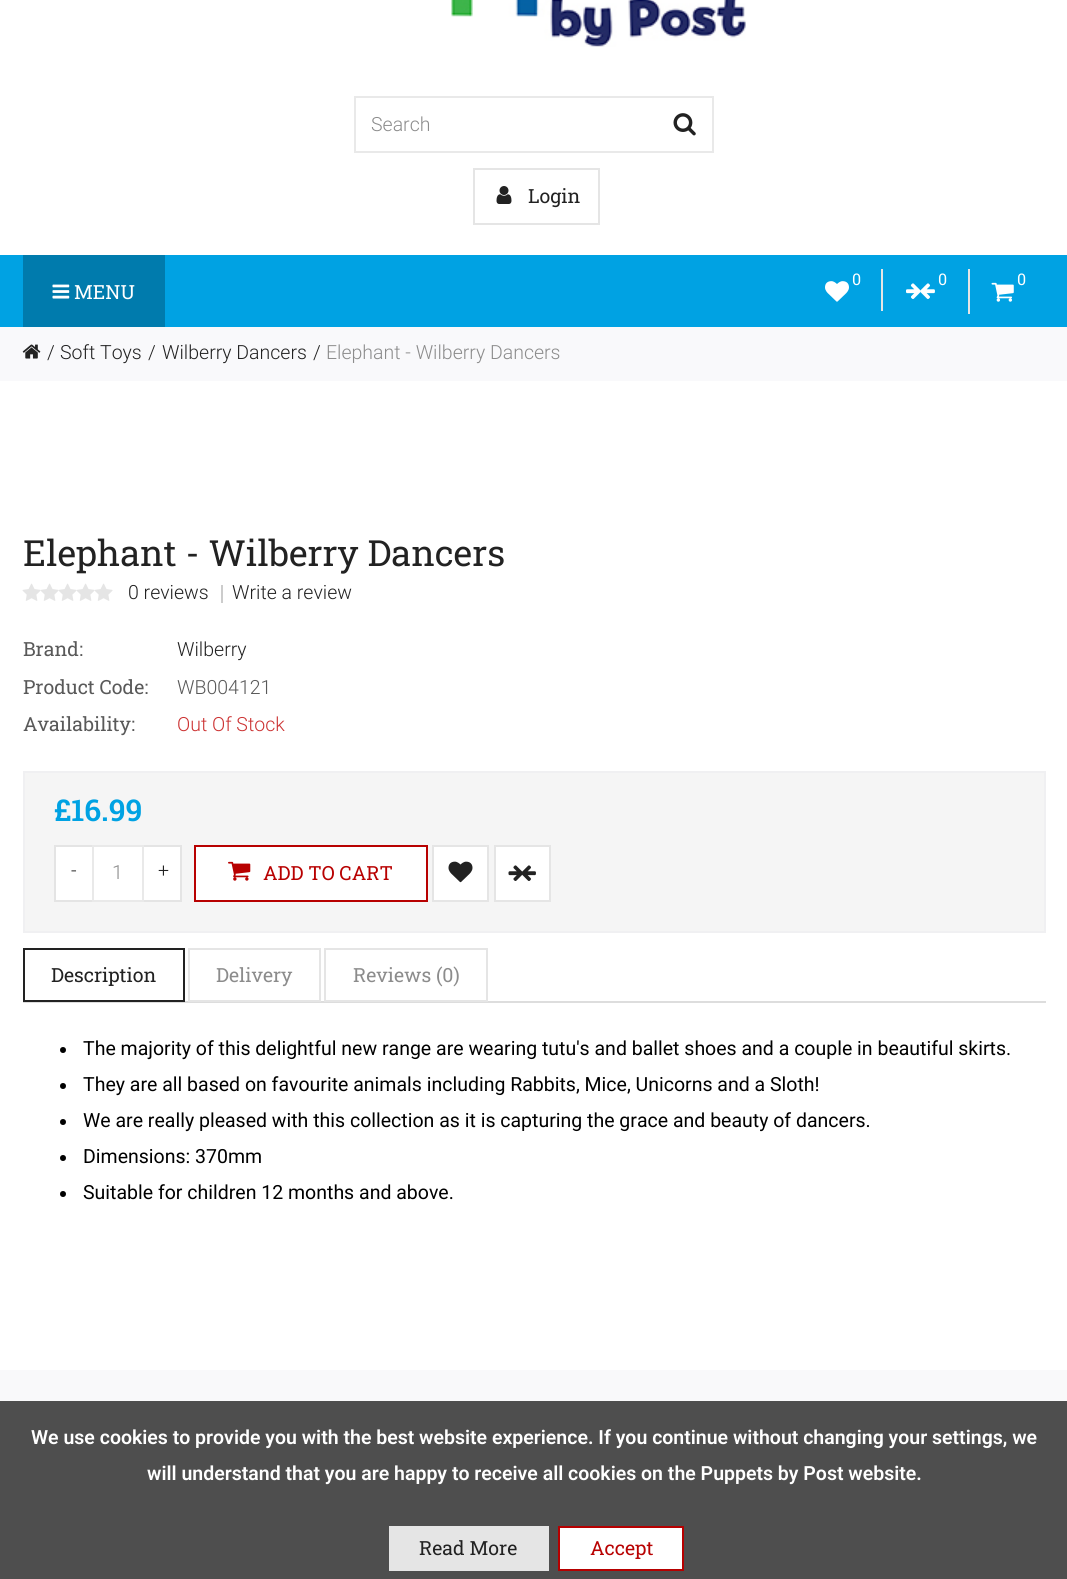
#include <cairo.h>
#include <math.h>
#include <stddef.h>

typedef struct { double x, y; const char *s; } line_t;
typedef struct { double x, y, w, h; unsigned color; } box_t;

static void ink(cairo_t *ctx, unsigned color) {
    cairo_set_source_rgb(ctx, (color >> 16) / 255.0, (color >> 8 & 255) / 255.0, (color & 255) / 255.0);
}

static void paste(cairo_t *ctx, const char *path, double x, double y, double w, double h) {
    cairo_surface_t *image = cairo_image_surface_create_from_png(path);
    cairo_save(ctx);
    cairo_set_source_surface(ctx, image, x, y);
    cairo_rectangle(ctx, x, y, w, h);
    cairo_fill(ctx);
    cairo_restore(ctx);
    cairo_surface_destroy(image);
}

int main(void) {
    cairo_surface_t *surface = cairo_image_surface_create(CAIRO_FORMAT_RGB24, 1067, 1579);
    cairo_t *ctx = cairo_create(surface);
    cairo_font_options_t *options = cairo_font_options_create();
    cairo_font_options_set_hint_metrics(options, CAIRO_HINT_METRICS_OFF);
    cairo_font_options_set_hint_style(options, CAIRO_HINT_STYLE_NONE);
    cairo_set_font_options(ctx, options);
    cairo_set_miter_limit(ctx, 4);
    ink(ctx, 0xFFFFFF);
    cairo_paint(ctx);
    paste(ctx, "media/1.png", 451, 0, 295, 47);
    cairo_rectangle(ctx, 355, 97, 358, 55);
    ink(ctx, 0xE9E9E9);
    cairo_stroke(ctx);
    cairo_select_font_face(ctx, "Roboto Light", CAIRO_FONT_SLANT_NORMAL, CAIRO_FONT_WEIGHT_NORMAL);
    cairo_set_font_size(ctx, 19.5);
    ink(ctx, 0x8C8C8C);
    cairo_move_to(ctx, 371, 131);
    cairo_show_text(ctx, "Search");
    paste(ctx, "media/2.png", 673, 113, 23, 23);
    cairo_rectangle(ctx, 474, 169, 125, 55);
    ink(ctx, 0xE5E5E5);
    cairo_stroke(ctx);
    paste(ctx, "media/3.png", 496, 186, 16, 18);
    cairo_select_font_face(ctx, "Roboto Slab", CAIRO_FONT_SLANT_NORMAL, CAIRO_FONT_WEIGHT_NORMAL);
    ink(ctx, 0x222222);
    cairo_move_to(ctx, 528, 203);
    cairo_show_text(ctx, "Login");
    ink(ctx, 0x00A2E3);
    cairo_rectangle(ctx, 0, 255, 1067, 72);
    cairo_fill(ctx);
    cairo_set_font_size(ctx, 16);
    ink(ctx, 0xFFFFFF);
    cairo_move_to(ctx, 852, 285);
    cairo_show_text(ctx, "0");
    paste(ctx, "media/4.png", 825, 281, 24, 21);
    ink(ctx, 0xE5E5E5);
    cairo_rectangle(ctx, 881, 269, 2, 42);
    cairo_fill(ctx);
    paste(ctx, "media/5.png", 906, 283, 15, 16);
    ink(ctx, 0xFFFFFF);
    cairo_move_to(ctx, 938, 285);
    cairo_show_text(ctx, "0");
    paste(ctx, "media/6.png", 920, 283, 15, 16);
    ink(ctx, 0xE5E5E5);
    cairo_rectangle(ctx, 968, 269, 2, 45);
    cairo_fill(ctx);
    paste(ctx, "media/7.png", 991, 282, 23, 20);
    ink(ctx, 0xFFFFFF);
    cairo_move_to(ctx, 1017, 285);
    cairo_show_text(ctx, "0");
    ink(ctx, 0x007BAD);
    cairo_rectangle(ctx, 23, 255, 142, 72);
    cairo_fill(ctx);
    paste(ctx, "media/8.png", 52, 284, 18, 15);
    cairo_set_font_size(ctx, 19.5);
    ink(ctx, 0xFFFFFF);
    cairo_move_to(ctx, 74, 299);
    cairo_show_text(ctx, "MENU");
    ink(ctx, 0xF9F9FB);
    cairo_rectangle(ctx, 0, 327, 1067, 54);
    cairo_fill(ctx);
    paste(ctx, "media/9.png", 22, 344, 19, 15);
    cairo_select_font_face(ctx, "Roboto Light", CAIRO_FONT_SLANT_NORMAL, CAIRO_FONT_WEIGHT_NORMAL);
    ink(ctx, 0x222222);
    {
        static const line_t items[] = {
            {47, 359, "/"},
            {60, 359, "Soft Toys"},
            {148, 359, "/"},
            {162, 359, "Wilberry Dancers"},
            {313, 359, "/"},
        };
        for (size_t i = 0; i < sizeof items / sizeof *items; i++) {
            cairo_move_to(ctx, items[i].x, items[i].y);
            cairo_show_text(ctx, items[i].s);
        }
    }
    ink(ctx, 0x8C8C8C);
    cairo_move_to(ctx, 326, 359);
    cairo_show_text(ctx, "Elephant - Wilberry Dancers");
    cairo_select_font_face(ctx, "Roboto Slab", CAIRO_FONT_SLANT_NORMAL, CAIRO_FONT_WEIGHT_NORMAL);
    cairo_set_font_size(ctx, 36);
    ink(ctx, 0x222222);
    cairo_move_to(ctx, 23, 566);
    cairo_show_text(ctx, "Elephant - Wilberry Dancers");
    paste(ctx, "media/10.png", 22, 583, 19, 18);
    paste(ctx, "media/11.png", 40, 583, 19, 18);
    paste(ctx, "media/11.png", 58, 583, 19, 18);
    paste(ctx, "media/11.png", 76, 583, 19, 18);
    paste(ctx, "media/11.png", 94, 583, 19, 18);
    cairo_select_font_face(ctx, "Roboto Light", CAIRO_FONT_SLANT_NORMAL, CAIRO_FONT_WEIGHT_NORMAL);
    cairo_set_font_size(ctx, 19.5);
    cairo_move_to(ctx, 128, 599);
    cairo_show_text(ctx, "0 reviews");
    ink(ctx, 0xCCCCCC);
    cairo_rectangle(ctx, 221, 585, 2, 18);
    cairo_fill(ctx);
    ink(ctx, 0x222222);
    cairo_move_to(ctx, 232, 599);
    cairo_show_text(ctx, "Write a review");
    cairo_select_font_face(ctx, "Roboto Slab", CAIRO_FONT_SLANT_NORMAL, CAIRO_FONT_WEIGHT_NORMAL);
    ink(ctx, 0x595959);
    cairo_move_to(ctx, 23, 656);
    cairo_show_text(ctx, "Brand:");
    cairo_select_font_face(ctx, "Roboto Light", CAIRO_FONT_SLANT_NORMAL, CAIRO_FONT_WEIGHT_NORMAL);
    ink(ctx, 0x222222);
    cairo_move_to(ctx, 177, 656);
    cairo_show_text(ctx, "Wilberry");
    cairo_select_font_face(ctx, "Roboto Slab", CAIRO_FONT_SLANT_NORMAL, CAIRO_FONT_WEIGHT_NORMAL);
    ink(ctx, 0x595959);
    cairo_move_to(ctx, 23, 694);
    cairo_show_text(ctx, "Product Code:");
    cairo_select_font_face(ctx, "Roboto Light", CAIRO_FONT_SLANT_NORMAL, CAIRO_FONT_WEIGHT_NORMAL);
    cairo_move_to(ctx, 177, 694);
    cairo_show_text(ctx, "WB004121");
    cairo_select_font_face(ctx, "Roboto Slab", CAIRO_FONT_SLANT_NORMAL, CAIRO_FONT_WEIGHT_NORMAL);
    cairo_move_to(ctx, 23, 731);
    cairo_show_text(ctx, "Availability:");
    cairo_select_font_face(ctx, "Roboto Light", CAIRO_FONT_SLANT_NORMAL, CAIRO_FONT_WEIGHT_NORMAL);
    ink(ctx, 0xCC3333);
    cairo_move_to(ctx, 177, 731);
    cairo_show_text(ctx, "Out Of Stock");
    ink(ctx, 0xF5F5F5);
    cairo_rectangle(ctx, 24, 772, 1021, 160);
    cairo_fill_preserve(ctx);
    ink(ctx, 0xF0F0F2);
    cairo_stroke(ctx);
    cairo_select_font_face(ctx, "Roboto Slab SemiBold", CAIRO_FONT_SLANT_NORMAL, CAIRO_FONT_WEIGHT_NORMAL);
    cairo_set_font_size(ctx, 30);
    ink(ctx, 0x00A2E3);
    cairo_move_to(ctx, 54, 821);
    cairo_show_text(ctx, "£16.99");
    {
        static const box_t items[] = {
            {56, 847, 36, 53, 0xFFFFFF},
            {54, 845, 38, 2, 0xE4E4E4},
            {54, 900, 38, 2, 0xE4E4E4},
            {54, 845, 2, 57, 0xE4E4E4},
        };
        for (size_t i = 0; i < sizeof items / sizeof *items; i++) {
            ink(ctx, items[i].color);
            cairo_rectangle(ctx, items[i].x, items[i].y, items[i].w, items[i].h);
            cairo_fill(ctx);
        }
    }
    cairo_select_font_face(ctx, "Roboto Light", CAIRO_FONT_SLANT_NORMAL, CAIRO_FONT_WEIGHT_NORMAL);
    cairo_set_font_size(ctx, 19.5);
    ink(ctx, 0x222222);
    cairo_move_to(ctx, 71, 877);
    cairo_show_text(ctx, "-");
    ink(ctx, 0xFFFFFF);
    cairo_rectangle(ctx, 93, 846, 50, 55);
    cairo_fill_preserve(ctx);
    ink(ctx, 0xE9E9E9);
    cairo_stroke(ctx);
    ink(ctx, 0x8C8C8C);
    cairo_move_to(ctx, 112, 879);
    cairo_show_text(ctx, "1");
    {
        static const box_t items[] = {
            {144, 847, 36, 53, 0xFFFFFF},
            {144, 845, 38, 2, 0xE4E4E4},
            {180, 845, 2, 57, 0xE4E4E4},
            {144, 900, 38, 2, 0xE4E4E4},
        };
        for (size_t i = 0; i < sizeof items / sizeof *items; i++) {
            ink(ctx, items[i].color);
            cairo_rectangle(ctx, items[i].x, items[i].y, items[i].w, items[i].h);
            cairo_fill(ctx);
        }
    }
    ink(ctx, 0x222222);
    cairo_move_to(ctx, 158, 877);
    cairo_show_text(ctx, "+");
    ink(ctx, 0xFFFFFF);
    cairo_rectangle(ctx, 195, 846, 232, 55);
    cairo_fill_preserve(ctx);
    ink(ctx, 0xB80101);
    cairo_stroke(ctx);
    paste(ctx, "media/12.png", 228, 861, 23, 20);
    cairo_select_font_face(ctx, "Roboto Slab", CAIRO_FONT_SLANT_NORMAL, CAIRO_FONT_WEIGHT_NORMAL);
    cairo_move_to(ctx, 263, 880);
    cairo_show_text(ctx, "ADD TO CART");
    ink(ctx, 0xFFFFFF);
    cairo_rectangle(ctx, 433, 846, 55, 55);
    cairo_fill_preserve(ctx);
    ink(ctx, 0xE5E5E5);
    cairo_stroke(ctx);
    paste(ctx, "media/13.png", 448, 861, 25, 22);
    ink(ctx, 0xFFFFFF);
    cairo_rectangle(ctx, 495, 846, 55, 55);
    cairo_fill_preserve(ctx);
    ink(ctx, 0xE5E5E5);
    cairo_stroke(ctx);
    paste(ctx, "media/14.png", 508, 865, 15, 16);
    paste(ctx, "media/15.png", 522, 865, 14, 16);
    ink(ctx, 0xDDDDDD);
    cairo_rectangle(ctx, 23, 1001, 1023, 2);
    cairo_fill(ctx);
    cairo_rectangle(ctx, 24, 949, 160, 52);
    ink(ctx, 0x222222);
    cairo_stroke(ctx);
    cairo_move_to(ctx, 51, 982);
    cairo_show_text(ctx, "Description");
    cairo_rectangle(ctx, 189, 949, 131, 52);
    ink(ctx, 0xE5E5E5);
    cairo_stroke(ctx);
    ink(ctx, 0x8C8C8C);
    cairo_move_to(ctx, 216, 982);
    cairo_show_text(ctx, "Delivery");
    cairo_rectangle(ctx, 325, 949, 162, 52);
    ink(ctx, 0xE5E5E5);
    cairo_stroke(ctx);
    ink(ctx, 0x8C8C8C);
    cairo_move_to(ctx, 353, 982);
    cairo_show_text(ctx, "Reviews (0)");
    ink(ctx, 0x000000);
    cairo_new_path(ctx);
    cairo_arc(ctx, 63, 1050, 3, 0, 2 * M_PI);
    cairo_fill(ctx);
    cairo_select_font_face(ctx, "Roboto", CAIRO_FONT_SLANT_NORMAL, CAIRO_FONT_WEIGHT_NORMAL);
    cairo_move_to(ctx, 83, 1055);
    cairo_show_text(ctx, "The majority of this delightful new range are wearing tutu's and ballet shoes and a couple in beautiful skirts.");
    cairo_new_path(ctx);
    cairo_arc(ctx, 63, 1086, 3, 0, 2 * M_PI);
    cairo_fill(ctx);
    cairo_move_to(ctx, 83, 1091);
    cairo_show_text(ctx, "They are all based on favourite animals including Rabbits, Mice, Unicorns and a Sloth!");
    cairo_new_path(ctx);
    cairo_arc(ctx, 63, 1122, 3, 0, 2 * M_PI);
    cairo_fill(ctx);
    cairo_move_to(ctx, 83, 1127);
    cairo_show_text(ctx, "We are really pleased with this collection as it is capturing the grace and beauty of dancers.");
    cairo_new_path(ctx);
    cairo_arc(ctx, 63, 1158, 3, 0, 2 * M_PI);
    cairo_fill(ctx);
    cairo_move_to(ctx, 83, 1163);
    cairo_show_text(ctx, "Dimensions: 370mm");
    cairo_new_path(ctx);
    cairo_arc(ctx, 63, 1194, 3, 0, 2 * M_PI);
    cairo_fill(ctx);
    cairo_move_to(ctx, 83, 1199);
    cairo_show_text(ctx, "Suitable for children 12 months and above.");
    ink(ctx, 0xF9F9FA);
    cairo_rectangle(ctx, 0, 1370, 1067, 31);
    cairo_fill(ctx);
    ink(ctx, 0x4E4E4E);
    cairo_rectangle(ctx, 0, 1401, 1067, 178);
    cairo_fill(ctx);
    cairo_select_font_face(ctx, "Roboto SemiBold", CAIRO_FONT_SLANT_NORMAL, CAIRO_FONT_WEIGHT_NORMAL);
    ink(ctx, 0xFFFFFF);
    cairo_move_to(ctx, 31, 1444);
    cairo_show_text(ctx, "We use cookies to provide you with the best website experience. If you continue without changing your settings, we");
    cairo_move_to(ctx, 147, 1480);
    cairo_show_text(ctx, "will understand that you are happy to receive all cookies on the Puppets by Post website.");
    ink(ctx, 0xE5E5E5);
    cairo_rectangle(ctx, 389, 1526, 160, 45);
    cairo_fill(ctx);
    cairo_select_font_face(ctx, "Roboto Slab", CAIRO_FONT_SLANT_NORMAL, CAIRO_FONT_WEIGHT_NORMAL);
    ink(ctx, 0x222222);
    cairo_move_to(ctx, 419, 1555);
    cairo_show_text(ctx, "Read More");
    ink(ctx, 0xFFFFFF);
    cairo_rectangle(ctx, 559, 1527, 124, 43);
    cairo_fill_preserve(ctx);
    ink(ctx, 0xB60000);
    cairo_stroke(ctx);
    ink(ctx, 0xB80101);
    cairo_move_to(ctx, 590, 1555);
    cairo_show_text(ctx, "Accept");
    cairo_surface_write_to_png(surface, "image.png");
    cairo_font_options_destroy(options);
    cairo_destroy(ctx);
    cairo_surface_destroy(surface);
    return 0;
}
